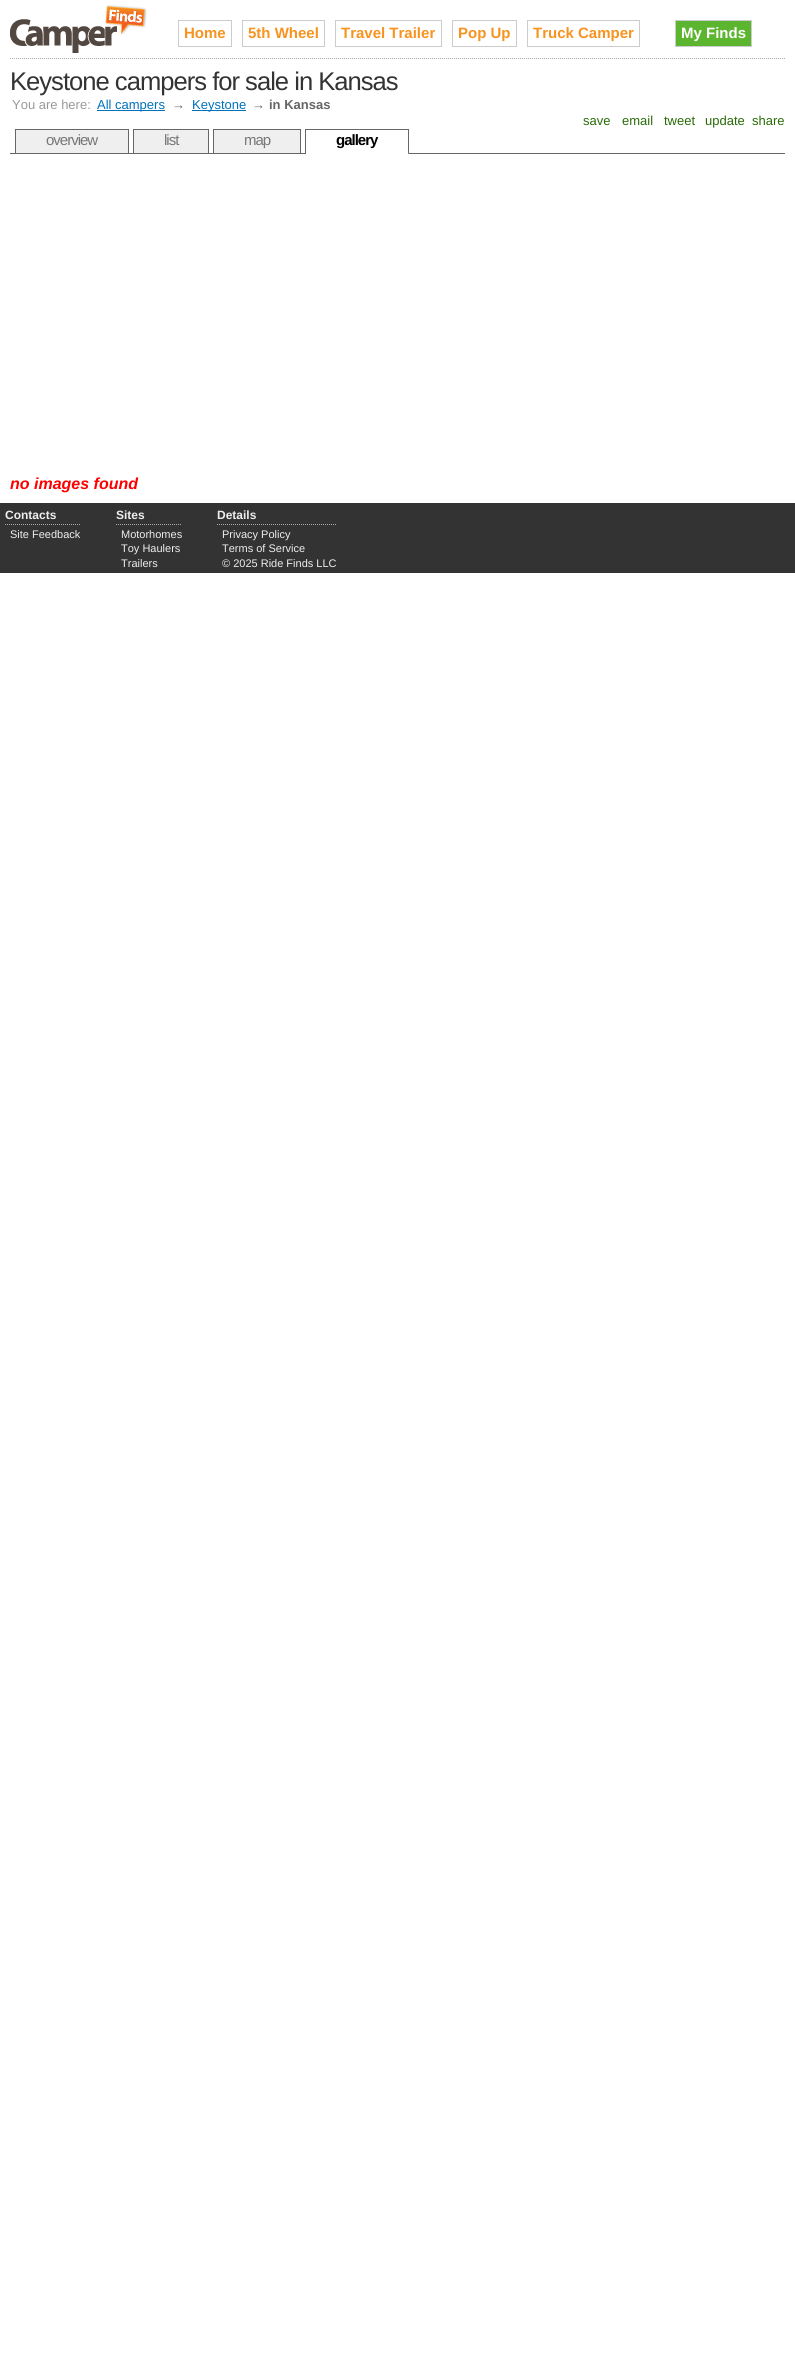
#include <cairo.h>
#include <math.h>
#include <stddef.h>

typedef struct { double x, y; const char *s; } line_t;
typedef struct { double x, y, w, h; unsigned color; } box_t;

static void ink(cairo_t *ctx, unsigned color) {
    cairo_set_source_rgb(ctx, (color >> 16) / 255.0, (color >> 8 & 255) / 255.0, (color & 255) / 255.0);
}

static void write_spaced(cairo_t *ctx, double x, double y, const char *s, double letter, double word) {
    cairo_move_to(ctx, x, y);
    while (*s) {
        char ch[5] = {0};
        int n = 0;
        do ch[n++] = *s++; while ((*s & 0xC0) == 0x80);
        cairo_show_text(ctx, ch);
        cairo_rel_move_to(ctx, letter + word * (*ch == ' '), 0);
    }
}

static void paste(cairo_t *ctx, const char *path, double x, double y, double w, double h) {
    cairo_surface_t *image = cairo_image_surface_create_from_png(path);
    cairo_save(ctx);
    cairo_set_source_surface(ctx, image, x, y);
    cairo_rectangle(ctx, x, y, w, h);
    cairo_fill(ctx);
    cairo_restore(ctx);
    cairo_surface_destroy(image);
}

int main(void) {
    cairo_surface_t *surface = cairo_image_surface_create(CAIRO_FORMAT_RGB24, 795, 2374);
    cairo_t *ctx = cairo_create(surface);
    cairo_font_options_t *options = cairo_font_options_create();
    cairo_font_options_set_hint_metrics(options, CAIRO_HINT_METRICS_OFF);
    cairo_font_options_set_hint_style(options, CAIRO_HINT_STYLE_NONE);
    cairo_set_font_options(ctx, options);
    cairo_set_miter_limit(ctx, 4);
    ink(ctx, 0xFFFFFF);
    cairo_paint(ctx);
    paste(ctx, "media/1.png", 10, 5, 137, 48);
    cairo_rectangle(ctx, 178.5, 20.5, 53, 26);
    ink(ctx, 0xCCCCCC);
    cairo_set_line_width(ctx, 1);
    cairo_stroke(ctx);
    cairo_select_font_face(ctx, "Liberation Sans", CAIRO_FONT_SLANT_NORMAL, CAIRO_FONT_WEIGHT_BOLD);
    cairo_set_font_size(ctx, 15);
    ink(ctx, 0xF7931E);
    cairo_move_to(ctx, 184, 38);
    cairo_show_text(ctx, "Home");
    cairo_rectangle(ctx, 242.5, 20.5, 82, 26);
    ink(ctx, 0xCCCCCC);
    cairo_stroke(ctx);
    ink(ctx, 0xF7931E);
    cairo_move_to(ctx, 248, 38);
    cairo_show_text(ctx, "5th Wheel");
    cairo_rectangle(ctx, 335.5, 20.5, 106, 26);
    ink(ctx, 0xCCCCCC);
    cairo_stroke(ctx);
    ink(ctx, 0xF7931E);
    cairo_move_to(ctx, 341, 38);
    cairo_show_text(ctx, "Travel Trailer");
    cairo_rectangle(ctx, 452.5, 20.5, 64, 26);
    ink(ctx, 0xCCCCCC);
    cairo_stroke(ctx);
    ink(ctx, 0xF7931E);
    cairo_move_to(ctx, 458, 38);
    cairo_show_text(ctx, "Pop Up");
    cairo_rectangle(ctx, 527.5, 20.5, 112, 26);
    ink(ctx, 0xCCCCCC);
    cairo_stroke(ctx);
    ink(ctx, 0xF7931E);
    cairo_move_to(ctx, 533, 38);
    cairo_show_text(ctx, "Truck Camper");
    ink(ctx, 0x5CB52F);
    cairo_rectangle(ctx, 675.5, 20.5, 76, 26);
    cairo_fill_preserve(ctx);
    ink(ctx, 0xCCCCCC);
    cairo_stroke(ctx);
    ink(ctx, 0xFFFFFF);
    cairo_move_to(ctx, 681, 38);
    cairo_show_text(ctx, "My Finds");
    cairo_new_path(ctx);
    cairo_move_to(ctx, 10, 58.5);
    cairo_line_to(ctx, 785, 58.5);
    ink(ctx, 0xAAAAAA);
    cairo_set_dash(ctx, (double[]){1, 1}, 2, 0);
    cairo_stroke(ctx);
    cairo_select_font_face(ctx, "Liberation Sans", CAIRO_FONT_SLANT_NORMAL, CAIRO_FONT_WEIGHT_NORMAL);
    cairo_set_font_size(ctx, 25.6);
    ink(ctx, 0x333333);
    write_spaced(ctx, 10, 90, "Keystone campers for sale in Kansas", -1, 0);
    cairo_set_font_size(ctx, 13);
    ink(ctx, 0x999999);
    cairo_move_to(ctx, 12, 109);
    cairo_show_text(ctx, "You are here:");
    ink(ctx, 0x0071BC);
    cairo_rectangle(ctx, 97, 110, 68, 1);
    cairo_fill(ctx);
    cairo_move_to(ctx, 97, 109);
    cairo_show_text(ctx, "All campers");
    ink(ctx, 0x666666);
    cairo_move_to(ctx, 172, 109);
    cairo_show_text(ctx, "→");
    ink(ctx, 0x0071BC);
    cairo_rectangle(ctx, 192, 110, 54, 1);
    cairo_fill(ctx);
    cairo_move_to(ctx, 192, 109);
    cairo_show_text(ctx, "Keystone");
    ink(ctx, 0x666666);
    cairo_move_to(ctx, 252, 109);
    cairo_show_text(ctx, "→");
    cairo_select_font_face(ctx, "Liberation Sans", CAIRO_FONT_SLANT_NORMAL, CAIRO_FONT_WEIGHT_BOLD);
    cairo_move_to(ctx, 269, 109);
    cairo_show_text(ctx, "in Kansas");
    cairo_select_font_face(ctx, "Liberation Sans", CAIRO_FONT_SLANT_NORMAL, CAIRO_FONT_WEIGHT_NORMAL);
    ink(ctx, 0x286B07);
    {
        static const line_t items[] = {
            {583, 125, "save"},
            {622, 125, "email"},
            {664, 125, "tweet"},
            {705, 125, "update"},
            {752, 125, "share"},
        };
        for (size_t i = 0; i < sizeof items / sizeof *items; i++) {
            cairo_move_to(ctx, items[i].x, items[i].y);
            cairo_show_text(ctx, items[i].s);
        }
    }
    {
        static const box_t items[] = {
            {10, 153, 775, 1, 0x666666},
            {16, 130, 112, 23, 0xEFEFEF},
            {15, 129, 114, 1, 0x666666},
            {128, 129, 1, 24, 0x666666},
            {15, 129, 1, 24, 0x666666},
        };
        for (size_t i = 0; i < sizeof items / sizeof *items; i++) {
            ink(ctx, items[i].color);
            cairo_rectangle(ctx, items[i].x, items[i].y, items[i].w, items[i].h);
            cairo_fill(ctx);
        }
    }
    cairo_set_font_size(ctx, 15);
    ink(ctx, 0x777777);
    write_spaced(ctx, 46, 145, "overview", -1, 0);
    {
        static const box_t items[] = {
            {134, 130, 74, 23, 0xEFEFEF},
            {133, 129, 76, 1, 0x666666},
            {208, 129, 1, 24, 0x666666},
            {133, 129, 1, 24, 0x666666},
        };
        for (size_t i = 0; i < sizeof items / sizeof *items; i++) {
            ink(ctx, items[i].color);
            cairo_rectangle(ctx, items[i].x, items[i].y, items[i].w, items[i].h);
            cairo_fill(ctx);
        }
    }
    ink(ctx, 0x777777);
    write_spaced(ctx, 164, 145, "list", -1, 0);
    {
        static const box_t items[] = {
            {214, 130, 86, 23, 0xEFEFEF},
            {213, 129, 88, 1, 0x666666},
            {300, 129, 1, 24, 0x666666},
            {213, 129, 1, 24, 0x666666},
        };
        for (size_t i = 0; i < sizeof items / sizeof *items; i++) {
            ink(ctx, items[i].color);
            cairo_rectangle(ctx, items[i].x, items[i].y, items[i].w, items[i].h);
            cairo_fill(ctx);
        }
    }
    ink(ctx, 0x777777);
    write_spaced(ctx, 244, 145, "map", -1, 0);
    ink(ctx, 0x666666);
    cairo_rectangle(ctx, 305, 129, 104, 1);
    cairo_fill(ctx);
    cairo_new_path(ctx);
    cairo_move_to(ctx, 409, 129);
    cairo_line_to(ctx, 409, 155);
    cairo_line_to(ctx, 408, 153);
    cairo_line_to(ctx, 408, 130);
    cairo_close_path(ctx);
    cairo_fill(ctx);
    ink(ctx, 0xFFFFFF);
    cairo_new_path(ctx);
    cairo_move_to(ctx, 409, 155);
    cairo_line_to(ctx, 305, 155);
    cairo_line_to(ctx, 306, 153);
    cairo_line_to(ctx, 408, 153);
    cairo_close_path(ctx);
    cairo_fill(ctx);
    ink(ctx, 0x666666);
    cairo_new_path(ctx);
    cairo_move_to(ctx, 305, 155);
    cairo_line_to(ctx, 305, 129);
    cairo_line_to(ctx, 306, 130);
    cairo_line_to(ctx, 306, 153);
    cairo_close_path(ctx);
    cairo_fill(ctx);
    cairo_select_font_face(ctx, "Liberation Sans", CAIRO_FONT_SLANT_NORMAL, CAIRO_FONT_WEIGHT_BOLD);
    ink(ctx, 0x000000);
    write_spaced(ctx, 336, 145, "gallery", -1, 0);
    cairo_select_font_face(ctx, "Liberation Sans", CAIRO_FONT_SLANT_ITALIC, CAIRO_FONT_WEIGHT_BOLD);
    cairo_set_font_size(ctx, 16);
    ink(ctx, 0xFF0000);
    cairo_move_to(ctx, 10, 489);
    cairo_show_text(ctx, "no images found");
    ink(ctx, 0x333333);
    cairo_rectangle(ctx, 0, 503, 795, 70);
    cairo_fill(ctx);
    cairo_new_path(ctx);
    cairo_move_to(ctx, 5, 524.5);
    cairo_line_to(ctx, 81, 524.5);
    ink(ctx, 0xAAAAAA);
    cairo_stroke(ctx);
    cairo_select_font_face(ctx, "Liberation Sans", CAIRO_FONT_SLANT_NORMAL, CAIRO_FONT_WEIGHT_BOLD);
    cairo_set_font_size(ctx, 12);
    ink(ctx, 0xEEEEEE);
    cairo_move_to(ctx, 5, 519);
    cairo_show_text(ctx, "Contacts");
    cairo_select_font_face(ctx, "Liberation Sans", CAIRO_FONT_SLANT_NORMAL, CAIRO_FONT_WEIGHT_NORMAL);
    cairo_set_font_size(ctx, 11);
    cairo_move_to(ctx, 10, 538);
    cairo_show_text(ctx, "Site Feedback");
    cairo_new_path(ctx);
    cairo_move_to(ctx, 116, 524.5);
    cairo_line_to(ctx, 182, 524.5);
    ink(ctx, 0xAAAAAA);
    cairo_stroke(ctx);
    cairo_select_font_face(ctx, "Liberation Sans", CAIRO_FONT_SLANT_NORMAL, CAIRO_FONT_WEIGHT_BOLD);
    cairo_set_font_size(ctx, 12);
    ink(ctx, 0xEEEEEE);
    cairo_move_to(ctx, 116, 519);
    cairo_show_text(ctx, "Sites");
    cairo_select_font_face(ctx, "Liberation Sans", CAIRO_FONT_SLANT_NORMAL, CAIRO_FONT_WEIGHT_NORMAL);
    cairo_set_font_size(ctx, 11);
    {
        static const line_t items[] = {
            {121, 538, "Motorhomes"},
            {121, 552, "Toy Haulers"},
            {121, 567, "Trailers"},
        };
        for (size_t i = 0; i < sizeof items / sizeof *items; i++) {
            cairo_move_to(ctx, items[i].x, items[i].y);
            cairo_show_text(ctx, items[i].s);
        }
    }
    cairo_new_path(ctx);
    cairo_move_to(ctx, 217, 524.5);
    cairo_line_to(ctx, 337, 524.5);
    ink(ctx, 0xAAAAAA);
    cairo_stroke(ctx);
    cairo_select_font_face(ctx, "Liberation Sans", CAIRO_FONT_SLANT_NORMAL, CAIRO_FONT_WEIGHT_BOLD);
    cairo_set_font_size(ctx, 12);
    ink(ctx, 0xEEEEEE);
    cairo_move_to(ctx, 217, 519);
    cairo_show_text(ctx, "Details");
    cairo_select_font_face(ctx, "Liberation Sans", CAIRO_FONT_SLANT_NORMAL, CAIRO_FONT_WEIGHT_NORMAL);
    cairo_set_font_size(ctx, 11);
    {
        static const line_t items[] = {
            {222, 538, "Privacy Policy"},
            {222, 552, "Terms of Service"},
            {222, 567, "© 2025 Ride Finds LLC"},
        };
        for (size_t i = 0; i < sizeof items / sizeof *items; i++) {
            cairo_move_to(ctx, items[i].x, items[i].y);
            cairo_show_text(ctx, items[i].s);
        }
    }
    cairo_surface_write_to_png(surface, "image.png");
    cairo_font_options_destroy(options);
    cairo_destroy(ctx);
    cairo_surface_destroy(surface);
    return 0;
}
